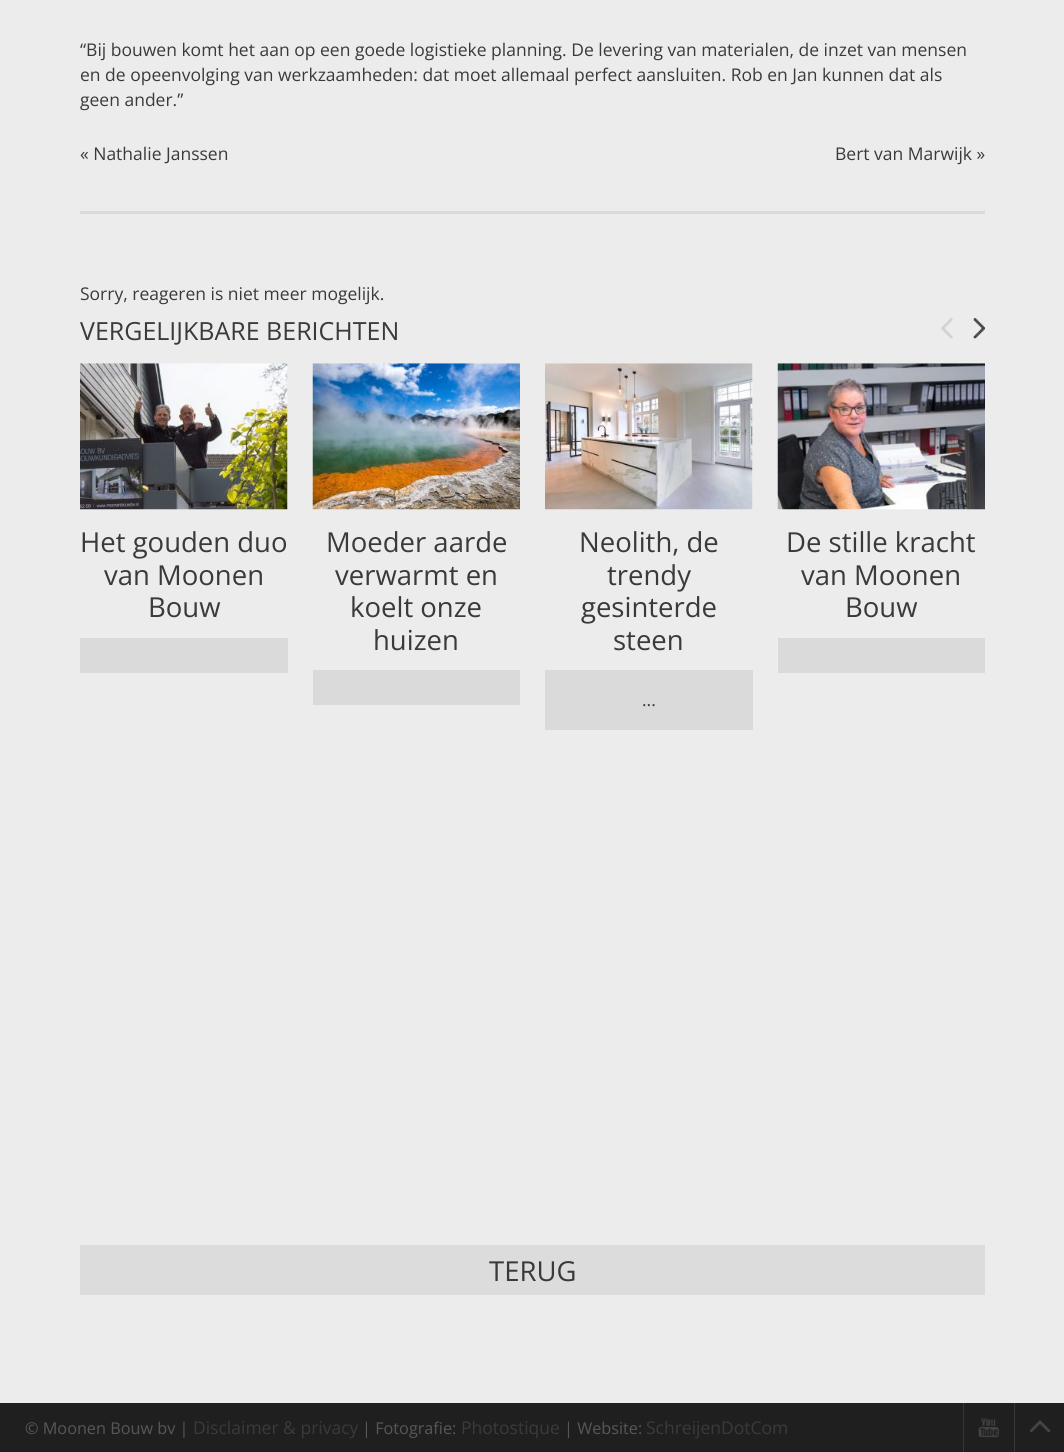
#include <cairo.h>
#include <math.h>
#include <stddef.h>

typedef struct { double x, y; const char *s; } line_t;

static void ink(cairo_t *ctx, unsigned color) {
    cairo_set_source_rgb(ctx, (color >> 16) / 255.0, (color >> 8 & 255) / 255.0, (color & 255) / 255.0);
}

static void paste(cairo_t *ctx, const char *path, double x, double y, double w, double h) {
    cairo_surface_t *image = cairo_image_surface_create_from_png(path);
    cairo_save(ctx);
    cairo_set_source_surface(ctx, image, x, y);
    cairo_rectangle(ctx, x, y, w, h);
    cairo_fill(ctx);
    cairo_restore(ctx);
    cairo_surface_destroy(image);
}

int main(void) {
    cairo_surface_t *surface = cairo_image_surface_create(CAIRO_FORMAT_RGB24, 1064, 1452);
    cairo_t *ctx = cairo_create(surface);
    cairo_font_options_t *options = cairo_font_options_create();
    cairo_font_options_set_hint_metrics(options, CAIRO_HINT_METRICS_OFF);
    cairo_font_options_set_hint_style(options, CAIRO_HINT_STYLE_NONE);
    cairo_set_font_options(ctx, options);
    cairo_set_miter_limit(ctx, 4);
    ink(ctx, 0xECECEC);
    cairo_paint(ctx);
    ink(ctx, 0xDADADA);
    cairo_rectangle(ctx, 80, 211, 905, 3);
    cairo_fill(ctx);
    cairo_select_font_face(ctx, "Open Sans", CAIRO_FONT_SLANT_NORMAL, CAIRO_FONT_WEIGHT_NORMAL);
    cairo_set_font_size(ctx, 17.5);
    ink(ctx, 0x3A3A3A);
    {
        static const line_t items[] = {
            {80, 56, "“Bij bouwen komt het aan op een goede logistieke planning. De levering van materialen, de inzet van mensen"},
            {80, 81, "en de opeenvolging van werkzaamheden: dat moet allemaal perfect aansluiten. Rob en Jan kunnen dat als"},
            {80, 106, "geen ander.”"},
            {80, 160, "« Nathalie Janssen"},
            {835, 160, "Bert van Marwijk »"},
            {80, 300, "Sorry, reageren is niet meer mogelijk."},
        };
        for (size_t i = 0; i < sizeof items / sizeof *items; i++) {
            cairo_move_to(ctx, items[i].x, items[i].y);
            cairo_show_text(ctx, items[i].s);
        }
    }
    cairo_set_font_size(ctx, 25);
    cairo_move_to(ctx, 80, 340);
    cairo_show_text(ctx, "VERGELIJKBARE BERICHTEN");
    paste(ctx, "media/1.png", 941, 318, 12, 21);
    paste(ctx, "media/2.png", 973, 318, 12, 21);
    paste(ctx, "media/3.png", 80, 363, 208, 147);
    cairo_set_font_size(ctx, 27.5);
    {
        static const line_t items[] = {
            {80, 552, "Het gouden duo"},
            {104, 585, "van Moonen"},
            {148, 617, "Bouw"},
        };
        for (size_t i = 0; i < sizeof items / sizeof *items; i++) {
            cairo_move_to(ctx, items[i].x, items[i].y);
            cairo_show_text(ctx, items[i].s);
        }
    }
    ink(ctx, 0xDADADA);
    cairo_rectangle(ctx, 80, 638, 208, 35);
    cairo_fill(ctx);
    paste(ctx, "media/4.png", 312, 363, 208, 147);
    ink(ctx, 0x3A3A3A);
    {
        static const line_t items[] = {
            {326, 552, "Moeder aarde"},
            {335, 585, "verwarmt en"},
            {350, 617, "koelt onze"},
            {373, 650, "huizen"},
        };
        for (size_t i = 0; i < sizeof items / sizeof *items; i++) {
            cairo_move_to(ctx, items[i].x, items[i].y);
            cairo_show_text(ctx, items[i].s);
        }
    }
    ink(ctx, 0xDADADA);
    cairo_rectangle(ctx, 313, 670, 207, 35);
    cairo_fill(ctx);
    paste(ctx, "media/5.png", 545, 363, 208, 147);
    ink(ctx, 0x3A3A3A);
    {
        static const line_t items[] = {
            {579, 552, "Neolith, de"},
            {607, 585, "trendy"},
            {581, 617, "gesinterde"},
            {613, 650, "steen"},
        };
        for (size_t i = 0; i < sizeof items / sizeof *items; i++) {
            cairo_move_to(ctx, items[i].x, items[i].y);
            cairo_show_text(ctx, items[i].s);
        }
    }
    ink(ctx, 0xDADADA);
    cairo_rectangle(ctx, 545, 670, 208, 60);
    cairo_fill(ctx);
    cairo_set_font_size(ctx, 17.5);
    ink(ctx, 0x3A3A3A);
    cairo_move_to(ctx, 642, 706);
    cairo_show_text(ctx, "...");
    paste(ctx, "media/6.png", 777, 363, 208, 147);
    cairo_set_font_size(ctx, 27.5);
    {
        static const line_t items[] = {
            {786, 552, "De stille kracht"},
            {801, 585, "van Moonen"},
            {845, 617, "Bouw"},
        };
        for (size_t i = 0; i < sizeof items / sizeof *items; i++) {
            cairo_move_to(ctx, items[i].x, items[i].y);
            cairo_show_text(ctx, items[i].s);
        }
    }
    ink(ctx, 0xDADADA);
    cairo_rectangle(ctx, 778, 638, 207, 35);
    cairo_fill(ctx);
    ink(ctx, 0xDCDCDC);
    cairo_rectangle(ctx, 80, 1245, 905, 50);
    cairo_fill(ctx);
    ink(ctx, 0x3A3A3A);
    cairo_move_to(ctx, 489, 1281);
    cairo_show_text(ctx, "TERUG");
    ink(ctx, 0x1F1F1F);
    cairo_rectangle(ctx, 0, 1403, 1064, 49);
    cairo_fill(ctx);
    cairo_set_font_size(ctx, 16.25);
    ink(ctx, 0x575757);
    cairo_move_to(ctx, 25, 1434);
    cairo_show_text(ctx, "© Moonen Bouw bv |");
    cairo_set_font_size(ctx, 17.5);
    ink(ctx, 0x3A3A3A);
    cairo_move_to(ctx, 193, 1434);
    cairo_show_text(ctx, "Disclaimer & privacy");
    cairo_set_font_size(ctx, 16.25);
    ink(ctx, 0x575757);
    cairo_move_to(ctx, 362, 1434);
    cairo_show_text(ctx, "| Fotografie:");
    cairo_set_font_size(ctx, 17.5);
    ink(ctx, 0x3A3A3A);
    cairo_move_to(ctx, 461, 1434);
    cairo_show_text(ctx, "Photostique");
    cairo_set_font_size(ctx, 16.25);
    ink(ctx, 0x575757);
    cairo_move_to(ctx, 564, 1434);
    cairo_show_text(ctx, "| Website:");
    cairo_set_font_size(ctx, 17.5);
    ink(ctx, 0x3A3A3A);
    cairo_move_to(ctx, 646, 1434);
    cairo_show_text(ctx, "SchreijenDotCom");
    ink(ctx, 0x363636);
    cairo_rectangle(ctx, 963, 1403, 1, 49);
    cairo_fill(ctx);
    paste(ctx, "media/7.png", 978, 1418, 21, 20);
    cairo_rectangle(ctx, 1014, 1403, 1, 49);
    cairo_fill(ctx);
    paste(ctx, "media/8.png", 1030, 1420, 21, 13);
    cairo_surface_write_to_png(surface, "image.png");
    cairo_font_options_destroy(options);
    cairo_destroy(ctx);
    cairo_surface_destroy(surface);
    return 0;
}
